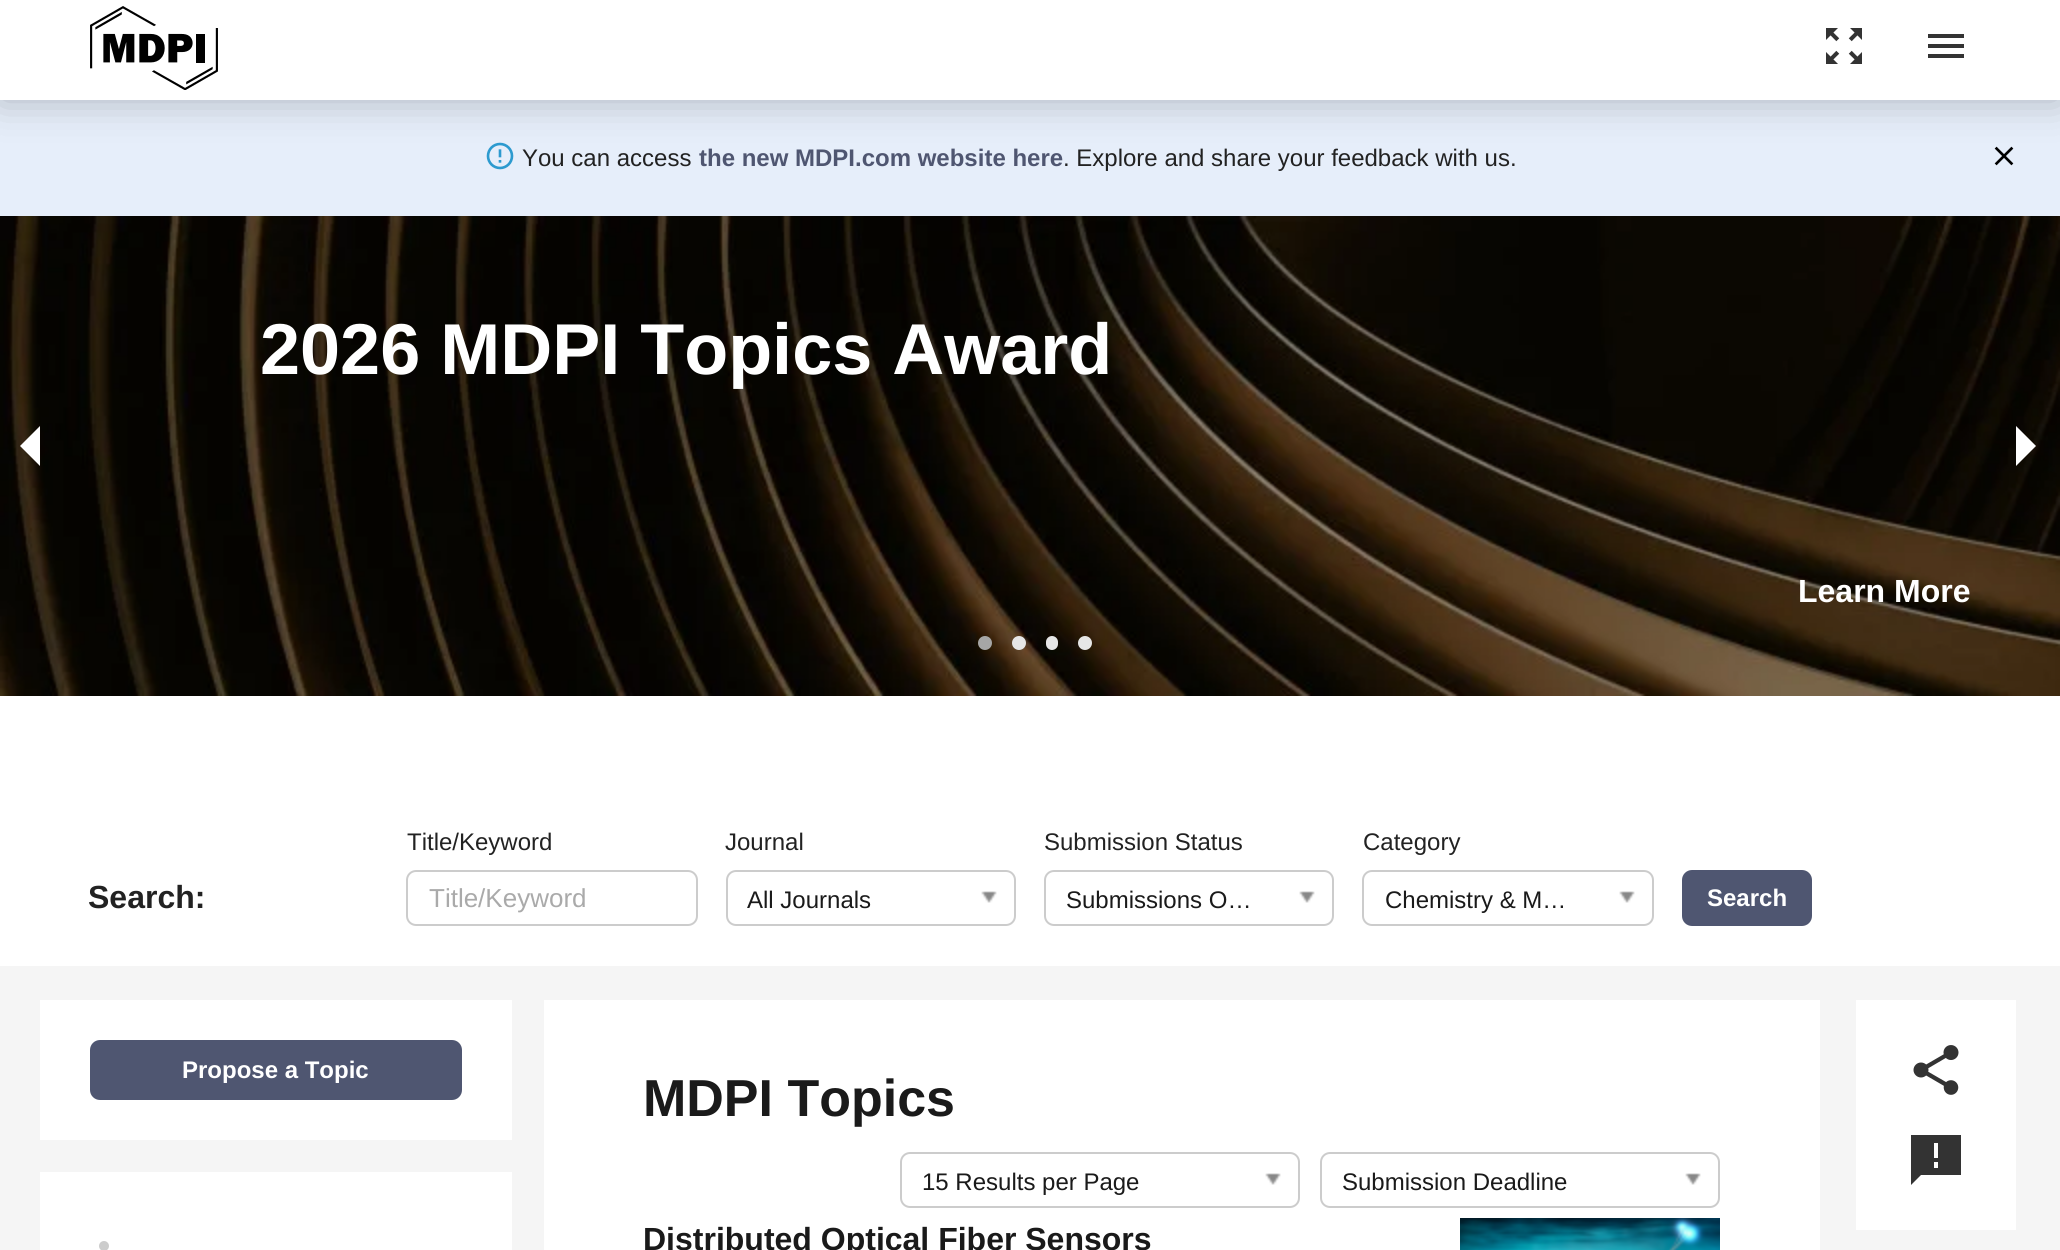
#include <cairo.h>
#include <math.h>
#include <stddef.h>


static void ink(cairo_t *ctx, unsigned color) {
    cairo_set_source_rgb(ctx, (color >> 16) / 255.0, (color >> 8 & 255) / 255.0, (color & 255) / 255.0);
}

static void round_path(cairo_t *ctx, double x, double y, double w, double h, double r) {
    cairo_new_sub_path(ctx);
    cairo_arc(ctx, x + w - r, y + h - r, r, 0, M_PI / 2);
    cairo_arc(ctx, x + r, y + h - r, r, M_PI / 2, M_PI);
    cairo_arc(ctx, x + r, y + r, r, M_PI, 1.5 * M_PI);
    cairo_arc(ctx, x + w - r, y + r, r, 1.5 * M_PI, 2 * M_PI);
    cairo_close_path(ctx);
}

static void blur_box(cairo_t *ctx, double x, double y, double w, double h, double r, double blur, double alpha) {
    cairo_push_group_with_content(ctx, CAIRO_CONTENT_ALPHA);
    cairo_set_operator(ctx, CAIRO_OPERATOR_SOURCE);
    for (int i = 15; i >= -15 && fmin(w, h) + blur * i / 3 > 0; i -= 2) {
        double e = blur * i / 6;
        cairo_set_source_rgba(ctx, 0, 0, 0, alpha * erfc((i - 1) / 8.5) / 2);
        round_path(ctx, x - e, y - e, w + 2 * e, h + 2 * e, fmax(0, fmin(r + e + blur * .6, fmin(w, h) / 2 + e)));
        cairo_fill(ctx);
    }
    cairo_pattern_t *soft = cairo_pop_group(ctx);
    cairo_mask(ctx, soft);
    cairo_pattern_destroy(soft);
}

static void paste(cairo_t *ctx, const char *path, double x, double y, double w, double h) {
    cairo_surface_t *image = cairo_image_surface_create_from_png(path);
    cairo_save(ctx);
    cairo_set_source_surface(ctx, image, x, y);
    cairo_rectangle(ctx, x, y, w, h);
    cairo_fill(ctx);
    cairo_restore(ctx);
    cairo_surface_destroy(image);
}

int main(void) {
    cairo_surface_t *surface = cairo_image_surface_create(CAIRO_FORMAT_RGB24, 2060, 1250);
    cairo_t *ctx = cairo_create(surface);
    cairo_font_options_t *options = cairo_font_options_create();
    cairo_font_options_set_hint_metrics(options, CAIRO_HINT_METRICS_OFF);
    cairo_font_options_set_hint_style(options, CAIRO_HINT_STYLE_NONE);
    cairo_set_font_options(ctx, options);
    cairo_set_miter_limit(ctx, 4);
    ink(ctx, 0xF5F5F5);
    cairo_paint(ctx);
    ink(ctx, 0xE6EEFA);
    cairo_rectangle(ctx, 0, 100, 2060, 116);
    cairo_fill(ctx);
    paste(ctx, "media/3.png", 486, 142, 28, 28);
    paste(ctx, "media/4.png", 1994, 146, 20, 20);
    ink(ctx, 0x000000);
    blur_box(ctx, 0, 0, 2060, 100, 0, 20, 0.25);
    ink(ctx, 0xFFFFFF);
    cairo_rectangle(ctx, 0, 0, 2060, 100);
    cairo_fill(ctx);
    paste(ctx, "media/1.png", 90, 6, 128, 84);
    paste(ctx, "media/2.png", 1826, 28, 36, 36);
    ink(ctx, 0x333333);
    cairo_new_path(ctx);
    cairo_move_to(ctx, 1928, 58);
    cairo_line_to(ctx, 1964, 58);
    cairo_line_to(ctx, 1964, 54);
    cairo_line_to(ctx, 1928, 54);
    cairo_close_path(ctx);
    cairo_move_to(ctx, 1928, 48);
    cairo_line_to(ctx, 1964, 48);
    cairo_line_to(ctx, 1964, 44);
    cairo_line_to(ctx, 1928, 44);
    cairo_close_path(ctx);
    cairo_move_to(ctx, 1928, 34);
    cairo_line_to(ctx, 1928, 38);
    cairo_line_to(ctx, 1964, 38);
    cairo_line_to(ctx, 1964, 34);
    cairo_close_path(ctx);
    cairo_fill(ctx);
    cairo_select_font_face(ctx, "Liberation Sans", CAIRO_FONT_SLANT_NORMAL, CAIRO_FONT_WEIGHT_NORMAL);
    cairo_set_font_size(ctx, 24);
    ink(ctx, 0x222222);
    cairo_move_to(ctx, 522, 166);
    cairo_show_text(ctx, "You can access");
    cairo_select_font_face(ctx, "Liberation Sans", CAIRO_FONT_SLANT_NORMAL, CAIRO_FONT_WEIGHT_BOLD);
    ink(ctx, 0x4F5671);
    cairo_move_to(ctx, 699, 166);
    cairo_show_text(ctx, "the new MDPI.com website here");
    cairo_select_font_face(ctx, "Liberation Sans", CAIRO_FONT_SLANT_NORMAL, CAIRO_FONT_WEIGHT_NORMAL);
    ink(ctx, 0x222222);
    cairo_move_to(ctx, 1063, 166);
    cairo_show_text(ctx, ". Explore and share your feedback with us.");
    ink(ctx, 0xFFFFFF);
    cairo_rectangle(ctx, 0, 696, 2060, 270);
    cairo_fill(ctx);
    paste(ctx, "media/5.png", 0, 216, 2060, 480);
    cairo_new_path(ctx);
    cairo_move_to(ctx, 40, 426);
    cairo_line_to(ctx, 40, 466);
    cairo_line_to(ctx, 20, 446);
    cairo_close_path(ctx);
    cairo_fill(ctx);
    cairo_new_path(ctx);
    cairo_move_to(ctx, 2016, 466);
    cairo_line_to(ctx, 2016, 426);
    cairo_line_to(ctx, 2036, 446);
    cairo_close_path(ctx);
    cairo_fill(ctx);
    ink(ctx, 0xA6A6A6);
    cairo_arc(ctx, 985, 643, 7, 0, 2 * M_PI);
    cairo_fill(ctx);
    ink(ctx, 0xE6E6E6);
    cairo_arc(ctx, 1019, 643, 7, 0, 2 * M_PI);
    cairo_fill(ctx);
    round_path(ctx, 1046, 636, 12, 14, 6);
    cairo_fill(ctx);
    cairo_arc(ctx, 1085, 643, 7, 0, 2 * M_PI);
    cairo_fill(ctx);
    cairo_select_font_face(ctx, "Liberation Sans", CAIRO_FONT_SLANT_NORMAL, CAIRO_FONT_WEIGHT_BOLD);
    cairo_set_font_size(ctx, 72);
    ink(ctx, 0xFFFFFF);
    cairo_move_to(ctx, 260, 374);
    cairo_show_text(ctx, "2026 MDPI Topics Award");
    cairo_set_font_size(ctx, 32);
    cairo_move_to(ctx, 1798, 602);
    cairo_show_text(ctx, "Learn More");
    ink(ctx, 0x222222);
    cairo_move_to(ctx, 88, 908);
    cairo_show_text(ctx, "Search:");
    cairo_select_font_face(ctx, "Liberation Sans", CAIRO_FONT_SLANT_NORMAL, CAIRO_FONT_WEIGHT_NORMAL);
    cairo_set_font_size(ctx, 24);
    cairo_move_to(ctx, 407, 850);
    cairo_show_text(ctx, "Title/Keyword");
    round_path(ctx, 407, 871, 290, 54, 9);
    ink(ctx, 0xCCCCCC);
    cairo_stroke(ctx);
    cairo_set_font_size(ctx, 26);
    ink(ctx, 0xAAAAAA);
    cairo_move_to(ctx, 429, 907);
    cairo_show_text(ctx, "Title/Keyword");
    cairo_set_font_size(ctx, 24);
    ink(ctx, 0x222222);
    cairo_move_to(ctx, 725, 850);
    cairo_show_text(ctx, "Journal");
    round_path(ctx, 727, 871, 288, 54, 9);
    ink(ctx, 0xCCCCCC);
    cairo_stroke(ctx);
    ink(ctx, 0x1A1A1A);
    cairo_move_to(ctx, 747, 908);
    cairo_show_text(ctx, "All Journals");
    paste(ctx, "media/6.png", 981, 891, 16, 12);
    ink(ctx, 0x222222);
    cairo_move_to(ctx, 1044, 850);
    cairo_show_text(ctx, "Submission Status");
    round_path(ctx, 1045, 871, 288, 54, 9);
    ink(ctx, 0xCCCCCC);
    cairo_stroke(ctx);
    ink(ctx, 0x1A1A1A);
    cairo_move_to(ctx, 1066, 908);
    cairo_show_text(ctx, "Submissions O…");
    paste(ctx, "media/6.png", 1299, 891, 16, 12);
    ink(ctx, 0x222222);
    cairo_move_to(ctx, 1363, 850);
    cairo_show_text(ctx, "Category");
    round_path(ctx, 1363, 871, 290, 54, 9);
    ink(ctx, 0xCCCCCC);
    cairo_stroke(ctx);
    ink(ctx, 0x1A1A1A);
    cairo_move_to(ctx, 1385, 908);
    cairo_show_text(ctx, "Chemistry & M…");
    paste(ctx, "media/6.png", 1619, 891, 16, 12);
    ink(ctx, 0x4F5671);
    round_path(ctx, 1683, 871, 128, 54, 9);
    cairo_fill_preserve(ctx);
    cairo_stroke(ctx);
    cairo_select_font_face(ctx, "Liberation Sans", CAIRO_FONT_SLANT_NORMAL, CAIRO_FONT_WEIGHT_BOLD);
    ink(ctx, 0xFFFFFF);
    cairo_move_to(ctx, 1707, 906);
    cairo_show_text(ctx, "Search");
    cairo_rectangle(ctx, 40, 1000, 472, 140);
    cairo_fill(ctx);
    ink(ctx, 0x4F5671);
    round_path(ctx, 91, 1041, 370, 58, 9);
    cairo_fill_preserve(ctx);
    cairo_stroke(ctx);
    ink(ctx, 0xFFFFFF);
    cairo_move_to(ctx, 182, 1078);
    cairo_show_text(ctx, "Propose a Topic");
    cairo_rectangle(ctx, 40, 1172, 472, 78);
    cairo_fill(ctx);
    paste(ctx, "media/7.png", 99, 1241, 10, 9);
    cairo_rectangle(ctx, 544, 1000, 1276, 250);
    cairo_fill(ctx);
    cairo_set_font_size(ctx, 52);
    ink(ctx, 0x1A1A1A);
    cairo_move_to(ctx, 643, 1116);
    cairo_show_text(ctx, "MDPI Topics");
    round_path(ctx, 901, 1153, 398, 54, 9);
    ink(ctx, 0xCCCCCC);
    cairo_stroke(ctx);
    cairo_select_font_face(ctx, "Liberation Sans", CAIRO_FONT_SLANT_NORMAL, CAIRO_FONT_WEIGHT_NORMAL);
    cairo_set_font_size(ctx, 24);
    ink(ctx, 0x1A1A1A);
    cairo_move_to(ctx, 922, 1190);
    cairo_show_text(ctx, "15 Results per Page");
    paste(ctx, "media/6.png", 1265, 1173, 16, 12);
    round_path(ctx, 1321, 1153, 398, 54, 9);
    ink(ctx, 0xCCCCCC);
    cairo_stroke(ctx);
    ink(ctx, 0x1A1A1A);
    cairo_move_to(ctx, 1342, 1190);
    cairo_show_text(ctx, "Submission Deadline");
    paste(ctx, "media/6.png", 1685, 1173, 16, 12);
    cairo_select_font_face(ctx, "Liberation Sans", CAIRO_FONT_SLANT_NORMAL, CAIRO_FONT_WEIGHT_BOLD);
    cairo_set_font_size(ctx, 32);
    cairo_move_to(ctx, 643, 1250);
    cairo_show_text(ctx, "Distributed Optical Fiber Sensors");
    paste(ctx, "media/8.png", 1460, 1218, 260, 32);
    ink(ctx, 0xFFFFFF);
    cairo_rectangle(ctx, 1856, 1000, 160, 230);
    cairo_fill(ctx);
    paste(ctx, "media/9.png", 1913, 1045, 46, 50);
    ink(ctx, 0x333333);
    cairo_new_path(ctx);
    cairo_move_to(ctx, 1961, 1135);
    cairo_line_to(ctx, 1911, 1135);
    cairo_line_to(ctx, 1911, 1185);
    cairo_line_to(ctx, 1921, 1175);
    cairo_line_to(ctx, 1961, 1175);
    cairo_close_path(ctx);
    cairo_move_to(ctx, 1938, 1158);
    cairo_line_to(ctx, 1934, 1158);
    cairo_line_to(ctx, 1934, 1143);
    cairo_line_to(ctx, 1938, 1143);
    cairo_close_path(ctx);
    cairo_move_to(ctx, 1938, 1168);
    cairo_line_to(ctx, 1934, 1168);
    cairo_line_to(ctx, 1934, 1162);
    cairo_line_to(ctx, 1938, 1162);
    cairo_close_path(ctx);
    cairo_fill(ctx);
    cairo_surface_write_to_png(surface, "image.png");
    cairo_font_options_destroy(options);
    cairo_destroy(ctx);
    cairo_surface_destroy(surface);
    return 0;
}
